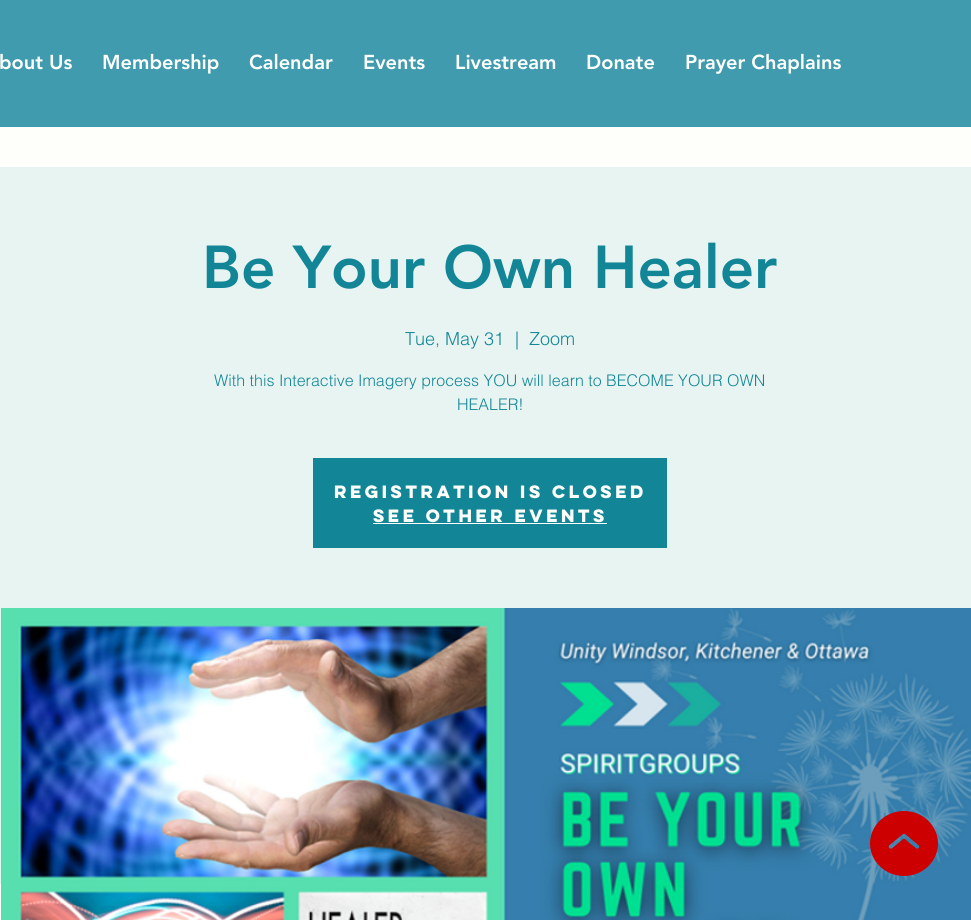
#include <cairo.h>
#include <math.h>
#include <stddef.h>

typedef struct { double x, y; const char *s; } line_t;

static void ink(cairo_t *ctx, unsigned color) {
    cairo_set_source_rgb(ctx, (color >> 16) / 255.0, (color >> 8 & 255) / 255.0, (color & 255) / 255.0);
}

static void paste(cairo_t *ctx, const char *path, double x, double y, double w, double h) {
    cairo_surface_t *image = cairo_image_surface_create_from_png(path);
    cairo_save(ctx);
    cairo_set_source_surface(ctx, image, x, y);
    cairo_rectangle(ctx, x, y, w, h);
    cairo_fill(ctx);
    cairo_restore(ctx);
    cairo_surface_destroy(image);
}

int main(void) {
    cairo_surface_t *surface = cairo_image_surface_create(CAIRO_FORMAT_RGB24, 971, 920);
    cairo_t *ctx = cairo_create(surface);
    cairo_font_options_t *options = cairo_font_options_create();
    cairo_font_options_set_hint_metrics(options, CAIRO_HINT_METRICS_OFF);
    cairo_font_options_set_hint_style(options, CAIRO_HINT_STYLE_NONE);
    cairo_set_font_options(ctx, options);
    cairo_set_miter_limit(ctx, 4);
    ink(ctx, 0xFEFFFB);
    cairo_paint(ctx);
    ink(ctx, 0x409BAF);
    cairo_rectangle(ctx, 0, 0, 971, 127);
    cairo_fill(ctx);
    cairo_select_font_face(ctx, "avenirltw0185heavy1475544 Black", CAIRO_FONT_SLANT_NORMAL, CAIRO_FONT_WEIGHT_NORMAL);
    cairo_set_font_size(ctx, 20);
    ink(ctx, 0xFEFFFB);
    {
        static const line_t items[] = {
            {-1, 69, "bout Us"},
            {102, 69, "Membership"},
            {249, 69, "Calendar"},
            {363, 69, "Events"},
            {455, 69, "Livestream"},
            {586, 69, "Donate"},
            {685, 69, "Prayer Chaplains"},
        };
        for (size_t i = 0; i < sizeof items / sizeof *items; i++) {
            cairo_move_to(ctx, items[i].x, items[i].y);
            cairo_show_text(ctx, items[i].s);
        }
    }
    ink(ctx, 0xE8F4F1);
    cairo_rectangle(ctx, 0, 167, 971, 717);
    cairo_fill(ctx);
    cairo_set_font_size(ctx, 60);
    ink(ctx, 0x128697);
    cairo_move_to(ctx, 202, 288);
    cairo_show_text(ctx, "Be Your Own Healer");
    cairo_select_font_face(ctx, "helvetica Light", CAIRO_FONT_SLANT_NORMAL, CAIRO_FONT_WEIGHT_NORMAL);
    cairo_set_font_size(ctx, 18);
    {
        static const line_t items[] = {
            {405, 345, "Tue, May 31"},
            {515, 345, "|"},
            {529, 345, "Zoom"},
        };
        for (size_t i = 0; i < sizeof items / sizeof *items; i++) {
            cairo_move_to(ctx, items[i].x, items[i].y);
            cairo_show_text(ctx, items[i].s);
        }
    }
    cairo_set_font_size(ctx, 16);
    cairo_move_to(ctx, 214, 386);
    cairo_show_text(ctx, "With this Interactive Imagery process YOU will learn to BECOME YOUR OWN");
    cairo_move_to(ctx, 457, 410);
    cairo_show_text(ctx, "HEALER!");
    cairo_rectangle(ctx, 313, 458, 354, 90);
    cairo_fill(ctx);
    cairo_select_font_face(ctx, "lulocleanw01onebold", CAIRO_FONT_SLANT_NORMAL, CAIRO_FONT_WEIGHT_BOLD);
    ink(ctx, 0xFEFFFB);
    cairo_move_to(ctx, 334, 498);
    cairo_show_text(ctx, "Registration is closed");
    cairo_move_to(ctx, 373, 522);
    cairo_show_text(ctx, "See other events");
    cairo_rectangle(ctx, 373, 523, 234, 1);
    cairo_fill(ctx);
    paste(ctx, "media/1.png", 1, 608, 970, 312);
    paste(ctx, "media/2.png", 870, 811, 68, 65);
    cairo_surface_write_to_png(surface, "image.png");
    cairo_font_options_destroy(options);
    cairo_destroy(ctx);
    cairo_surface_destroy(surface);
    return 0;
}
